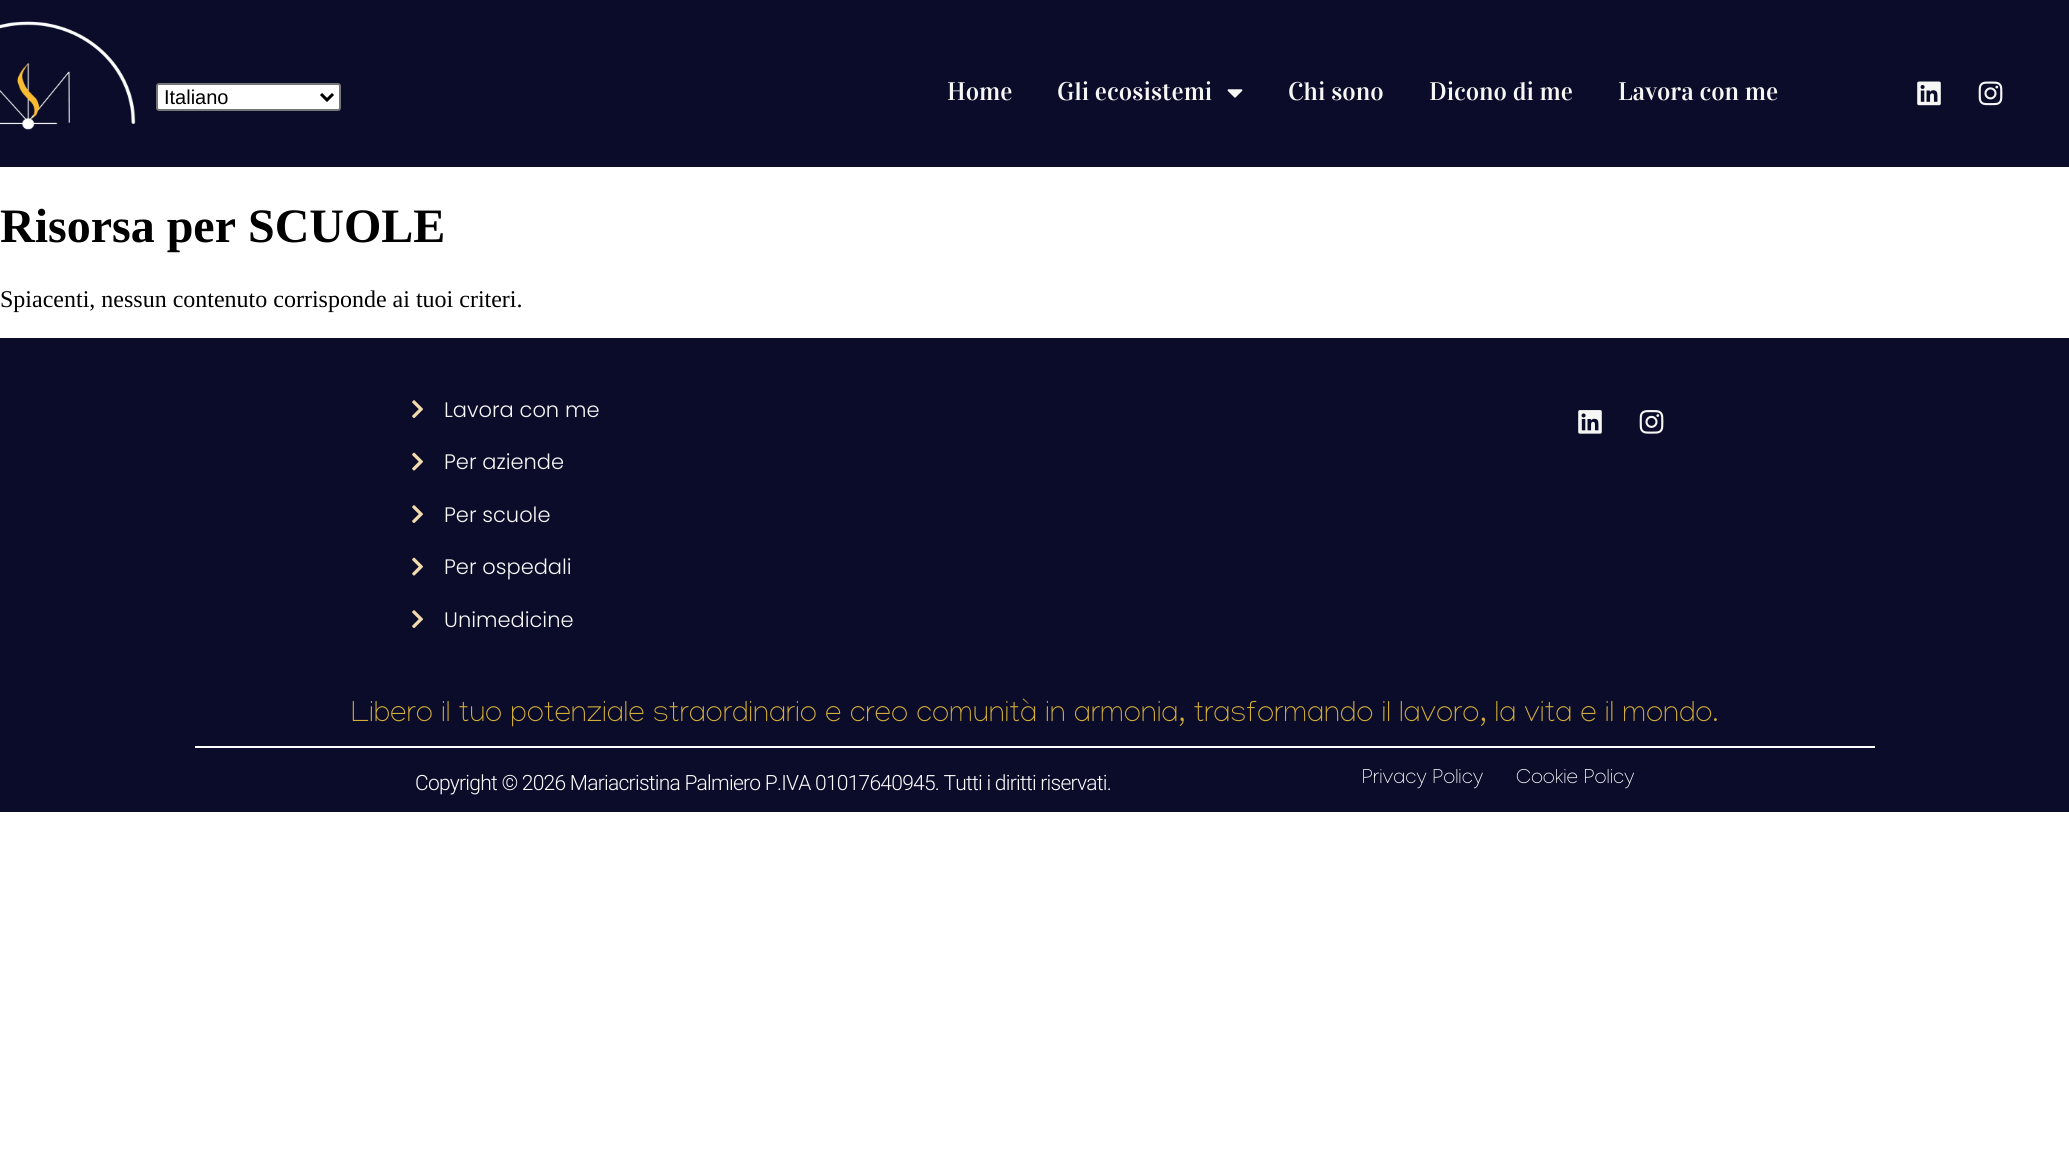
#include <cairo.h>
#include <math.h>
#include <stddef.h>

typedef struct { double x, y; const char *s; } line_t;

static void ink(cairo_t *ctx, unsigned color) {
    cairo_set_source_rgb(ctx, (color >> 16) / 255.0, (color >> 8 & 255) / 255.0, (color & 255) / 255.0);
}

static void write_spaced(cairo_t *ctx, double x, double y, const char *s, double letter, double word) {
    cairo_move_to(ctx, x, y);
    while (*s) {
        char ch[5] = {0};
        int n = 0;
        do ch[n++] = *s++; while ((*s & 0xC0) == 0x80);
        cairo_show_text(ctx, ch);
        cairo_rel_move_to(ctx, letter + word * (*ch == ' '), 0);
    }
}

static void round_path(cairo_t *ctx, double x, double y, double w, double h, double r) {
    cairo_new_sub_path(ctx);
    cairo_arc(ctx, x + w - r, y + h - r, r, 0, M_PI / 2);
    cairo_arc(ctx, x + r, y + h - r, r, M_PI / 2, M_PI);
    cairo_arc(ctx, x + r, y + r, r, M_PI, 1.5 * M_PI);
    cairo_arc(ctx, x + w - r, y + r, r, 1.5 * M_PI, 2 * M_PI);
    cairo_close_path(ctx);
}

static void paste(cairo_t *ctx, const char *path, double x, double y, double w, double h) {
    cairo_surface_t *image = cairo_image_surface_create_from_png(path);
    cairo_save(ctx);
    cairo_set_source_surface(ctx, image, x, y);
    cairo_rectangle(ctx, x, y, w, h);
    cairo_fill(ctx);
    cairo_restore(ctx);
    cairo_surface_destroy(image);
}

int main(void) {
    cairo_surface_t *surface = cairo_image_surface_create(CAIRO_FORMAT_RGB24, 2069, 1173);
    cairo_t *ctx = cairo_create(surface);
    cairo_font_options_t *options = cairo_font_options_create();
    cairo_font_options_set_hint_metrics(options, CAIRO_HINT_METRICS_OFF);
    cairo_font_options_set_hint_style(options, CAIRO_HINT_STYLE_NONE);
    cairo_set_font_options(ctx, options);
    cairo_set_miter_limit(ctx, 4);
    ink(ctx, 0xFFFFFF);
    cairo_paint(ctx);
    ink(ctx, 0x0B0C2A);
    cairo_rectangle(ctx, 0, 0, 2069, 167);
    cairo_fill(ctx);
    paste(ctx, "media/1.png", 0, 21, 136, 109);
    ink(ctx, 0xFFFFFF);
    round_path(ctx, 157, 84, 183, 26, 2);
    cairo_fill_preserve(ctx);
    ink(ctx, 0x767676);
    cairo_stroke(ctx);
    cairo_new_path(ctx);
    cairo_move_to(ctx, 321, 94);
    cairo_line_to(ctx, 327, 100);
    cairo_line_to(ctx, 333, 94);
    ink(ctx, 0x000000);
    cairo_set_line_width(ctx, 3);
    cairo_stroke(ctx);
    cairo_select_font_face(ctx, "Liberation Sans", CAIRO_FONT_SLANT_NORMAL, CAIRO_FONT_WEIGHT_NORMAL);
    cairo_set_font_size(ctx, 20);
    cairo_move_to(ctx, 164, 104);
    cairo_show_text(ctx, "Italiano");
    cairo_select_font_face(ctx, "Vidaloka", CAIRO_FONT_SLANT_NORMAL, CAIRO_FONT_WEIGHT_NORMAL);
    cairo_set_font_size(ctx, 25.5);
    ink(ctx, 0xF6F6F4);
    cairo_move_to(ctx, 947, 100);
    cairo_show_text(ctx, "Home");
    cairo_move_to(ctx, 1057, 100);
    cairo_show_text(ctx, "Gli ecosistemi");
    paste(ctx, "media/2.png", 1227, 89, 16, 9);
    {
        static const line_t items[] = {
            {1288, 100, "Chi sono"},
            {1429, 100, "Dicono di me"},
            {1618, 100, "Lavora con me"},
        };
        for (size_t i = 0; i < sizeof items / sizeof *items; i++) {
            cairo_move_to(ctx, items[i].x, items[i].y);
            cairo_show_text(ctx, items[i].s);
        }
    }
    paste(ctx, "media/3.png", 1917, 81, 24, 25);
    paste(ctx, "media/4.png", 1978, 81, 25, 25);
    cairo_select_font_face(ctx, "Liberation Serif", CAIRO_FONT_SLANT_NORMAL, CAIRO_FONT_WEIGHT_BOLD);
    cairo_set_font_size(ctx, 48);
    ink(ctx, 0x000000);
    cairo_move_to(ctx, 0, 242);
    cairo_show_text(ctx, "Risorsa per SCUOLE");
    cairo_select_font_face(ctx, "Liberation Serif", CAIRO_FONT_SLANT_NORMAL, CAIRO_FONT_WEIGHT_NORMAL);
    cairo_set_font_size(ctx, 24);
    cairo_move_to(ctx, 0, 307);
    cairo_show_text(ctx, "Spiacenti, nessun contenuto corrisponde ai tuoi criteri.");
    ink(ctx, 0x0B0C2A);
    cairo_rectangle(ctx, 0, 338, 2069, 474);
    cairo_fill(ctx);
    paste(ctx, "media/5.png", 412, 400, 11, 18);
    cairo_select_font_face(ctx, "Poppins Light", CAIRO_FONT_SLANT_NORMAL, CAIRO_FONT_WEIGHT_NORMAL);
    cairo_set_font_size(ctx, 21);
    ink(ctx, 0xF6F6F4);
    cairo_move_to(ctx, 444, 417);
    cairo_show_text(ctx, "Lavora con me");
    paste(ctx, "media/6.png", 412, 452, 11, 19);
    cairo_move_to(ctx, 444, 469);
    cairo_show_text(ctx, "Per aziende");
    paste(ctx, "media/5.png", 412, 505, 11, 18);
    cairo_move_to(ctx, 444, 522);
    cairo_show_text(ctx, "Per scuole");
    paste(ctx, "media/6.png", 412, 557, 11, 19);
    cairo_move_to(ctx, 444, 574);
    cairo_show_text(ctx, "Per ospedali");
    paste(ctx, "media/5.png", 412, 610, 11, 18);
    cairo_move_to(ctx, 444, 627);
    cairo_show_text(ctx, "Unimedicine");
    paste(ctx, "media/7.png", 1578, 410, 24, 24);
    paste(ctx, "media/8.png", 1639, 410, 25, 24);
    cairo_select_font_face(ctx, "Manjari Thin", CAIRO_FONT_SLANT_NORMAL, CAIRO_FONT_WEIGHT_NORMAL);
    cairo_set_font_size(ctx, 30);
    ink(ctx, 0xD4AF37);
    cairo_move_to(ctx, 351, 721);
    cairo_show_text(ctx, "Libero il tuo potenziale straordinario e creo comunità in armonia, trasformando il lavoro, la vita e il mondo.");
    ink(ctx, 0xFFFFFF);
    cairo_rectangle(ctx, 195, 746, 1680, 2);
    cairo_fill(ctx);
    cairo_select_font_face(ctx, "Roboto Light", CAIRO_FONT_SLANT_NORMAL, CAIRO_FONT_WEIGHT_NORMAL);
    cairo_set_font_size(ctx, 21);
    write_spaced(ctx, 415, 790, "Copyright © 2026 Mariacristina Palmiero P.IVA 01017640945. Tutti i diritti riservati.", -0.75, 0);
    cairo_select_font_face(ctx, "Manjari Thin", CAIRO_FONT_SLANT_NORMAL, CAIRO_FONT_WEIGHT_NORMAL);
    cairo_move_to(ctx, 1362, 783);
    cairo_show_text(ctx, "Privacy Policy");
    cairo_move_to(ctx, 1516, 783);
    cairo_show_text(ctx, "Cookie Policy");
    cairo_surface_write_to_png(surface, "image.png");
    cairo_font_options_destroy(options);
    cairo_destroy(ctx);
    cairo_surface_destroy(surface);
    return 0;
}
